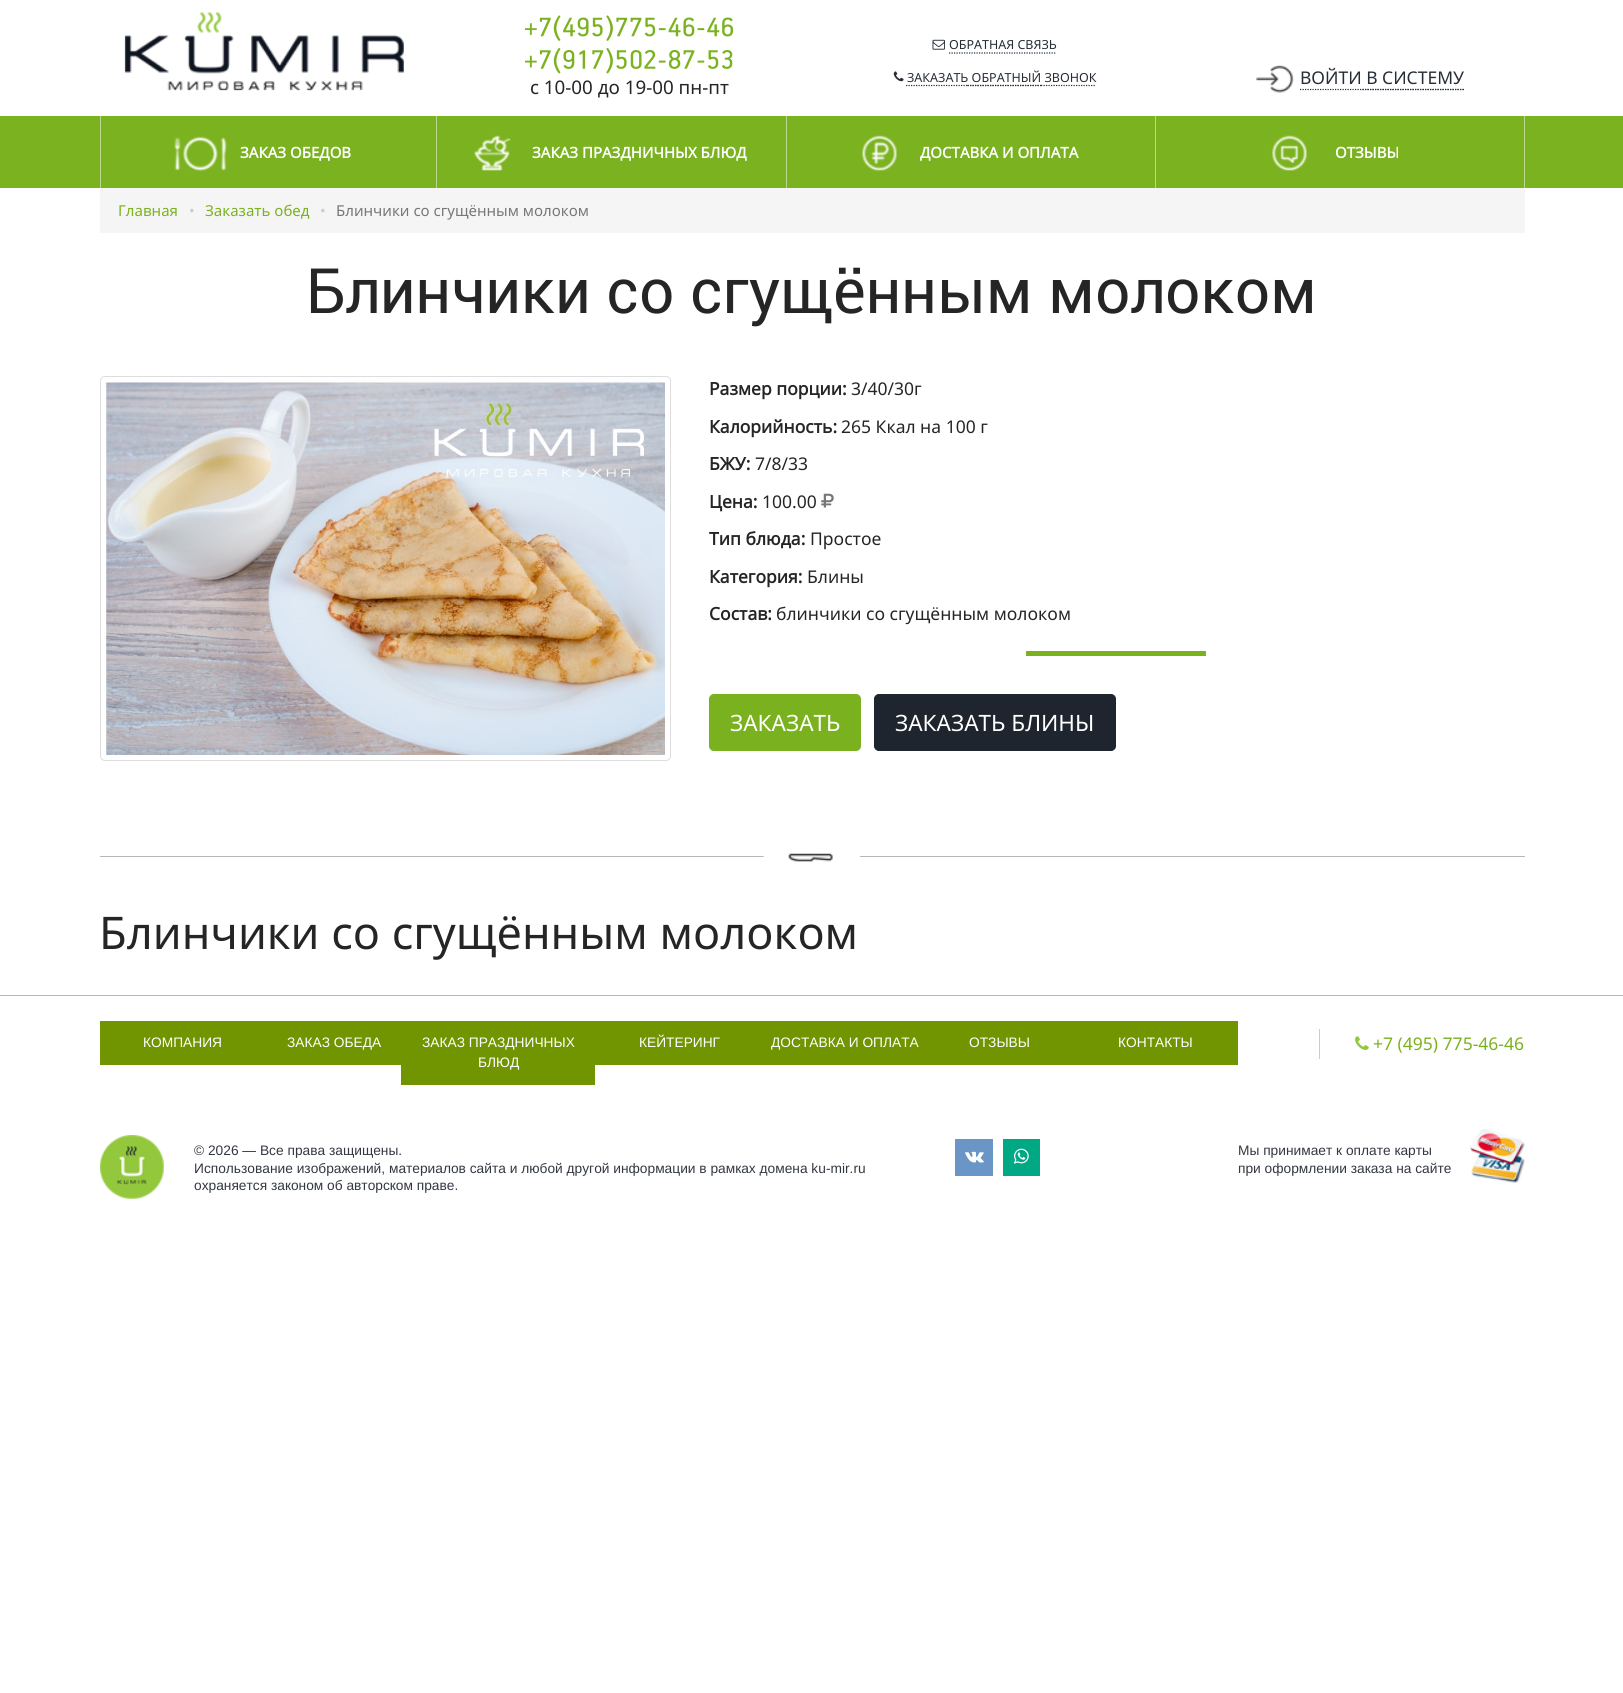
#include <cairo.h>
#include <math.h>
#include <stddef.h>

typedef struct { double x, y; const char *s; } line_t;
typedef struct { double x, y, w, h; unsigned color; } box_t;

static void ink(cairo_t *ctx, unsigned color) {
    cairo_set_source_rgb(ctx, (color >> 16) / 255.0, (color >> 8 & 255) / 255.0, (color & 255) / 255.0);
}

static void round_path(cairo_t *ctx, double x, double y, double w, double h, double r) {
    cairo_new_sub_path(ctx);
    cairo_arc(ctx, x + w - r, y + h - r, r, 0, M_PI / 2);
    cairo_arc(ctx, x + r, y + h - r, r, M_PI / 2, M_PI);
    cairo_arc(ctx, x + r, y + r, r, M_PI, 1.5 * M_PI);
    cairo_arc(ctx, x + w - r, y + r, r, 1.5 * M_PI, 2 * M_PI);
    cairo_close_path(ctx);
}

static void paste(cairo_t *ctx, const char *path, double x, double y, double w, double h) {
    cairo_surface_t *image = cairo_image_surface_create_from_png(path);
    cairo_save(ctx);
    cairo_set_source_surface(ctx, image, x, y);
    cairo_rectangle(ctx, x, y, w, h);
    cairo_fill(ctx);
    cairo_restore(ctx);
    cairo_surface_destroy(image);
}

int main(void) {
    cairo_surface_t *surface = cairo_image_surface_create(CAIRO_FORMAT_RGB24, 1623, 1693);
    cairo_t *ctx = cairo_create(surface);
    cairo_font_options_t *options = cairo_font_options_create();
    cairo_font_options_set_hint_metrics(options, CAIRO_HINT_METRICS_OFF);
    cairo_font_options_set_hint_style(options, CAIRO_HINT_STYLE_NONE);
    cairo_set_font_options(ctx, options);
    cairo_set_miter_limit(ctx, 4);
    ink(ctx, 0xFFFFFF);
    cairo_paint(ctx);
    paste(ctx, "media/1.png", 124, 12, 280, 79);
    paste(ctx, "media/2.png", 932, 39, 13, 11);
    cairo_select_font_face(ctx, "Noto Sans", CAIRO_FONT_SLANT_NORMAL, CAIRO_FONT_WEIGHT_NORMAL);
    cairo_set_font_size(ctx, 12.5);
    ink(ctx, 0x262D36);
    cairo_move_to(ctx, 949, 49);
    cairo_show_text(ctx, "ОБРАТНАЯ СВЯЗЬ");
    cairo_new_path(ctx);
    cairo_move_to(ctx, 949, 53);
    cairo_line_to(ctx, 1056, 53);
    cairo_set_line_width(ctx, 1.2);
    cairo_set_dash(ctx, (double[]){1.25, 1.25}, 2, 0);
    cairo_stroke(ctx);
    paste(ctx, "media/3.png", 893, 71, 11, 11);
    cairo_move_to(ctx, 907, 82);
    cairo_show_text(ctx, "ЗАКАЗАТЬ ОБРАТНЫЙ ЗВОНОК");
    cairo_new_path(ctx);
    cairo_move_to(ctx, 906, 85.5);
    cairo_line_to(ctx, 967.5, 85.5);
    cairo_stroke(ctx);
    cairo_new_path(ctx);
    cairo_move_to(ctx, 967.5, 85.5);
    cairo_line_to(ctx, 1041, 85.5);
    cairo_stroke(ctx);
    cairo_new_path(ctx);
    cairo_move_to(ctx, 1041, 85.5);
    cairo_line_to(ctx, 1096, 85.5);
    cairo_stroke(ctx);
    cairo_new_path(ctx);
    cairo_move_to(ctx, 967.5, 85.5);
    cairo_line_to(ctx, 1041, 85.5);
    cairo_stroke(ctx);
    paste(ctx, "media/4.png", 1256, 65, 38, 28);
    cairo_set_font_size(ctx, 17.5);
    cairo_move_to(ctx, 1300, 84);
    cairo_show_text(ctx, "ВОЙТИ В СИСТЕМУ");
    cairo_new_path(ctx);
    cairo_move_to(ctx, 1300, 89.5);
    cairo_line_to(ctx, 1362.5, 89.5);
    cairo_stroke(ctx);
    cairo_new_path(ctx);
    cairo_move_to(ctx, 1362.5, 89.5);
    cairo_line_to(ctx, 1464, 89.5);
    cairo_stroke(ctx);
    cairo_new_path(ctx);
    cairo_move_to(ctx, 1362.5, 89.5);
    cairo_line_to(ctx, 1464, 89.5);
    cairo_stroke(ctx);
    paste(ctx, "media/5.png", 524, 15, 209, 26);
    paste(ctx, "media/6.png", 524, 48, 209, 26);
    cairo_set_font_size(ctx, 18.75);
    ink(ctx, 0x252525);
    cairo_move_to(ctx, 530, 94);
    cairo_show_text(ctx, "c 10-00 до 19-00 пн-пт");
    {
        static const box_t items[] = {
            {0, 116, 1623, 72, 0x7BB21F},
            {436, 116, 1, 72, 0xBDD98F},
            {100, 116, 1, 72, 0xBDD98F},
        };
        for (size_t i = 0; i < sizeof items / sizeof *items; i++) {
            ink(ctx, items[i].color);
            cairo_rectangle(ctx, items[i].x, items[i].y, items[i].w, items[i].h);
            cairo_fill(ctx);
        }
    }
    paste(ctx, "media/7.png", 174, 136, 53, 35);
    cairo_select_font_face(ctx, "Noto Sans", CAIRO_FONT_SLANT_NORMAL, CAIRO_FONT_WEIGHT_BOLD);
    cairo_set_font_size(ctx, 15);
    ink(ctx, 0xFFFFFF);
    cairo_move_to(ctx, 240, 158);
    cairo_show_text(ctx, "ЗАКАЗ ОБЕДОВ");
    ink(ctx, 0xBDD98F);
    cairo_rectangle(ctx, 786, 116, 1, 72);
    cairo_fill(ctx);
    paste(ctx, "media/8.png", 474, 135, 37, 36);
    ink(ctx, 0xFFFFFF);
    cairo_move_to(ctx, 532, 158);
    cairo_show_text(ctx, "ЗАКАЗ ПРАЗДНИЧНЫХ БЛЮД");
    ink(ctx, 0xBDD98F);
    cairo_rectangle(ctx, 1155, 116, 1, 72);
    cairo_fill(ctx);
    paste(ctx, "media/9.png", 861, 135, 36, 36);
    ink(ctx, 0xFFFFFF);
    cairo_move_to(ctx, 920, 158);
    cairo_show_text(ctx, "ДОСТАВКА И ОПЛАТА");
    ink(ctx, 0xBDD98F);
    cairo_rectangle(ctx, 1524, 116, 1, 72);
    cairo_fill(ctx);
    paste(ctx, "media/10.png", 1271, 135, 36, 36);
    ink(ctx, 0xFFFFFF);
    cairo_move_to(ctx, 1335, 158);
    cairo_show_text(ctx, "ОТЗЫВЫ");
    ink(ctx, 0xF5F5F5);
    cairo_rectangle(ctx, 100, 188, 1425, 45);
    cairo_fill(ctx);
    cairo_select_font_face(ctx, "Noto Sans", CAIRO_FONT_SLANT_NORMAL, CAIRO_FONT_WEIGHT_NORMAL);
    ink(ctx, 0x7BB21F);
    cairo_move_to(ctx, 118, 216);
    cairo_show_text(ctx, "Главная");
    ink(ctx, 0xCCCCCC);
    cairo_move_to(ctx, 189, 216);
    cairo_show_text(ctx, "•");
    ink(ctx, 0x7BB21F);
    cairo_move_to(ctx, 205, 216);
    cairo_show_text(ctx, "Заказать обед");
    ink(ctx, 0xCCCCCC);
    cairo_move_to(ctx, 320, 216);
    cairo_show_text(ctx, "•");
    ink(ctx, 0x777777);
    cairo_move_to(ctx, 336, 216);
    cairo_show_text(ctx, "Блинчики со сгущённым молоком");
    cairo_select_font_face(ctx, "Roboto", CAIRO_FONT_SLANT_NORMAL, CAIRO_FONT_WEIGHT_NORMAL);
    cairo_set_font_size(ctx, 62.5);
    ink(ctx, 0x252525);
    cairo_move_to(ctx, 306, 313);
    cairo_show_text(ctx, "Блинчики со сгущённым молоком");
    round_path(ctx, 100.5, 376.5, 570, 384, 4.5);
    ink(ctx, 0xDDDDDD);
    cairo_set_line_width(ctx, 1);
    cairo_set_dash(ctx, NULL, 0, 0);
    cairo_stroke(ctx);
    paste(ctx, "media/11.png", 106, 382, 559, 373);
    cairo_select_font_face(ctx, "Noto Sans", CAIRO_FONT_SLANT_NORMAL, CAIRO_FONT_WEIGHT_BOLD);
    cairo_set_font_size(ctx, 17.5);
    ink(ctx, 0x252525);
    cairo_move_to(ctx, 709, 395);
    cairo_show_text(ctx, "Размер порции:");
    cairo_select_font_face(ctx, "Noto Sans", CAIRO_FONT_SLANT_NORMAL, CAIRO_FONT_WEIGHT_NORMAL);
    cairo_move_to(ctx, 851, 395);
    cairo_show_text(ctx, "3/40/30г");
    cairo_select_font_face(ctx, "Noto Sans", CAIRO_FONT_SLANT_NORMAL, CAIRO_FONT_WEIGHT_BOLD);
    cairo_move_to(ctx, 709, 433);
    cairo_show_text(ctx, "Калорийность:");
    cairo_select_font_face(ctx, "Noto Sans", CAIRO_FONT_SLANT_NORMAL, CAIRO_FONT_WEIGHT_NORMAL);
    cairo_move_to(ctx, 841, 433);
    cairo_show_text(ctx, "265 Ккал на 100 г");
    cairo_select_font_face(ctx, "Noto Sans", CAIRO_FONT_SLANT_NORMAL, CAIRO_FONT_WEIGHT_BOLD);
    cairo_move_to(ctx, 709, 470);
    cairo_show_text(ctx, "БЖУ:");
    cairo_select_font_face(ctx, "Noto Sans", CAIRO_FONT_SLANT_NORMAL, CAIRO_FONT_WEIGHT_NORMAL);
    cairo_move_to(ctx, 755, 470);
    cairo_show_text(ctx, "7/8/33");
    cairo_select_font_face(ctx, "Noto Sans", CAIRO_FONT_SLANT_NORMAL, CAIRO_FONT_WEIGHT_BOLD);
    cairo_move_to(ctx, 709, 508);
    cairo_show_text(ctx, "Цена:");
    cairo_select_font_face(ctx, "Noto Sans", CAIRO_FONT_SLANT_NORMAL, CAIRO_FONT_WEIGHT_NORMAL);
    cairo_move_to(ctx, 762, 508);
    cairo_show_text(ctx, "100.00");
    paste(ctx, "media/12.png", 821, 493, 13, 15);
    cairo_select_font_face(ctx, "Noto Sans", CAIRO_FONT_SLANT_NORMAL, CAIRO_FONT_WEIGHT_BOLD);
    cairo_move_to(ctx, 709, 545);
    cairo_show_text(ctx, "Тип блюда:");
    cairo_select_font_face(ctx, "Noto Sans", CAIRO_FONT_SLANT_NORMAL, CAIRO_FONT_WEIGHT_NORMAL);
    cairo_move_to(ctx, 810, 545);
    cairo_show_text(ctx, "Простое");
    cairo_select_font_face(ctx, "Noto Sans", CAIRO_FONT_SLANT_NORMAL, CAIRO_FONT_WEIGHT_BOLD);
    cairo_move_to(ctx, 709, 583);
    cairo_show_text(ctx, "Категория:");
    cairo_select_font_face(ctx, "Noto Sans", CAIRO_FONT_SLANT_NORMAL, CAIRO_FONT_WEIGHT_NORMAL);
    cairo_move_to(ctx, 807, 583);
    cairo_show_text(ctx, "Блины");
    cairo_select_font_face(ctx, "Noto Sans", CAIRO_FONT_SLANT_NORMAL, CAIRO_FONT_WEIGHT_BOLD);
    cairo_move_to(ctx, 709, 620);
    cairo_show_text(ctx, "Состав:");
    cairo_select_font_face(ctx, "Noto Sans", CAIRO_FONT_SLANT_NORMAL, CAIRO_FONT_WEIGHT_NORMAL);
    cairo_move_to(ctx, 776, 620);
    cairo_show_text(ctx, "блинчики со сгущённым молоком");
    ink(ctx, 0x7AB21F);
    cairo_rectangle(ctx, 1026, 651, 180, 5);
    cairo_fill(ctx);
    round_path(ctx, 709.5, 694.5, 151, 56, 4.5);
    cairo_fill_preserve(ctx);
    cairo_stroke(ctx);
    cairo_set_font_size(ctx, 22.5);
    ink(ctx, 0xFFFFFF);
    cairo_move_to(ctx, 730, 731);
    cairo_show_text(ctx, "ЗАКАЗАТЬ");
    ink(ctx, 0x1E252F);
    round_path(ctx, 874.5, 694.5, 241, 56, 4.5);
    cairo_fill_preserve(ctx);
    cairo_stroke(ctx);
    ink(ctx, 0xFFFFFF);
    cairo_move_to(ctx, 895, 731);
    cairo_show_text(ctx, "ЗАКАЗАТЬ БЛИНЫ");
    ink(ctx, 0xB7B7B7);
    cairo_rectangle(ctx, 100, 856, 1425, 1);
    cairo_fill(ctx);
    paste(ctx, "media/13.png", 763, 853, 97, 9);
    cairo_set_font_size(ctx, 45);
    ink(ctx, 0x252525);
    cairo_move_to(ctx, 99, 949);
    cairo_show_text(ctx, "Блинчики со сгущённым молоком");
    ink(ctx, 0xB7B7B7);
    cairo_rectangle(ctx, 0, 995, 1623, 1);
    cairo_fill(ctx);
    ink(ctx, 0x719500);
    cairo_rectangle(ctx, 100, 1021, 301, 44);
    cairo_fill(ctx);
    cairo_select_font_face(ctx, "Liberation Sans", CAIRO_FONT_SLANT_NORMAL, CAIRO_FONT_WEIGHT_NORMAL);
    cairo_set_font_size(ctx, 13.75);
    ink(ctx, 0xFFFFFF);
    cairo_move_to(ctx, 143, 1047);
    cairo_show_text(ctx, "КОМПАНИЯ");
    cairo_move_to(ctx, 287, 1047);
    cairo_show_text(ctx, "ЗАКАЗ ОБЕДА");
    ink(ctx, 0x719500);
    cairo_rectangle(ctx, 401, 1021, 194, 64);
    cairo_fill(ctx);
    ink(ctx, 0xFFFFFF);
    cairo_move_to(ctx, 422, 1047);
    cairo_show_text(ctx, "ЗАКАЗ ПРАЗДНИЧНЫХ");
    cairo_move_to(ctx, 478, 1067);
    cairo_show_text(ctx, "БЛЮД");
    ink(ctx, 0x719500);
    cairo_rectangle(ctx, 595, 1021, 643, 44);
    cairo_fill(ctx);
    ink(ctx, 0xFFFFFF);
    {
        static const line_t items[] = {
            {639, 1047, "КЕЙТЕРИНГ"},
            {771, 1047, "ДОСТАВКА И ОПЛАТА"},
            {969, 1047, "ОТЗЫВЫ"},
            {1118, 1047, "КОНТАКТЫ"},
        };
        for (size_t i = 0; i < sizeof items / sizeof *items; i++) {
            cairo_move_to(ctx, items[i].x, items[i].y);
            cairo_show_text(ctx, items[i].s);
        }
    }
    ink(ctx, 0xCCCCCC);
    cairo_rectangle(ctx, 1319, 1029, 1, 30);
    cairo_fill(ctx);
    paste(ctx, "media/14.png", 1355, 1036, 14, 14);
    cairo_select_font_face(ctx, "Noto Sans", CAIRO_FONT_SLANT_NORMAL, CAIRO_FONT_WEIGHT_NORMAL);
    cairo_set_font_size(ctx, 17.5);
    ink(ctx, 0x7BB21F);
    cairo_move_to(ctx, 1373, 1050);
    cairo_show_text(ctx, "+7 (495) 775-46-46");
    paste(ctx, "media/15.png", 100, 1135, 64, 64);
    cairo_select_font_face(ctx, "Liberation Sans", CAIRO_FONT_SLANT_NORMAL, CAIRO_FONT_WEIGHT_NORMAL);
    cairo_set_font_size(ctx, 13.75);
    ink(ctx, 0x333841);
    {
        static const line_t items[] = {
            {194, 1155, "© 2026 — Все права защищены."},
            {194, 1173, "Использование изображений, материалов сайта и любой другой информации в рамках домена ku-mir.ru"},
            {194, 1190, "охраняется законом об авторском праве."},
        };
        for (size_t i = 0; i < sizeof items / sizeof *items; i++) {
            cairo_move_to(ctx, items[i].x, items[i].y);
            cairo_show_text(ctx, items[i].s);
        }
    }
    ink(ctx, 0x6996C7);
    cairo_rectangle(ctx, 955, 1139, 38, 37);
    cairo_fill(ctx);
    paste(ctx, "media/16.png", 965, 1151, 19, 12);
    ink(ctx, 0x00A884);
    cairo_rectangle(ctx, 1003, 1139, 37, 37);
    cairo_fill(ctx);
    paste(ctx, "media/17.png", 1013, 1148, 16, 16);
    ink(ctx, 0x333841);
    cairo_move_to(ctx, 1238, 1155);
    cairo_show_text(ctx, "Мы принимает к оплате карты");
    cairo_move_to(ctx, 1238, 1173);
    cairo_show_text(ctx, "при оформлении заказа на сайте");
    paste(ctx, "media/18.png", 1470, 1129, 55, 54);
    cairo_surface_write_to_png(surface, "image.png");
    cairo_font_options_destroy(options);
    cairo_destroy(ctx);
    cairo_surface_destroy(surface);
    return 0;
}
